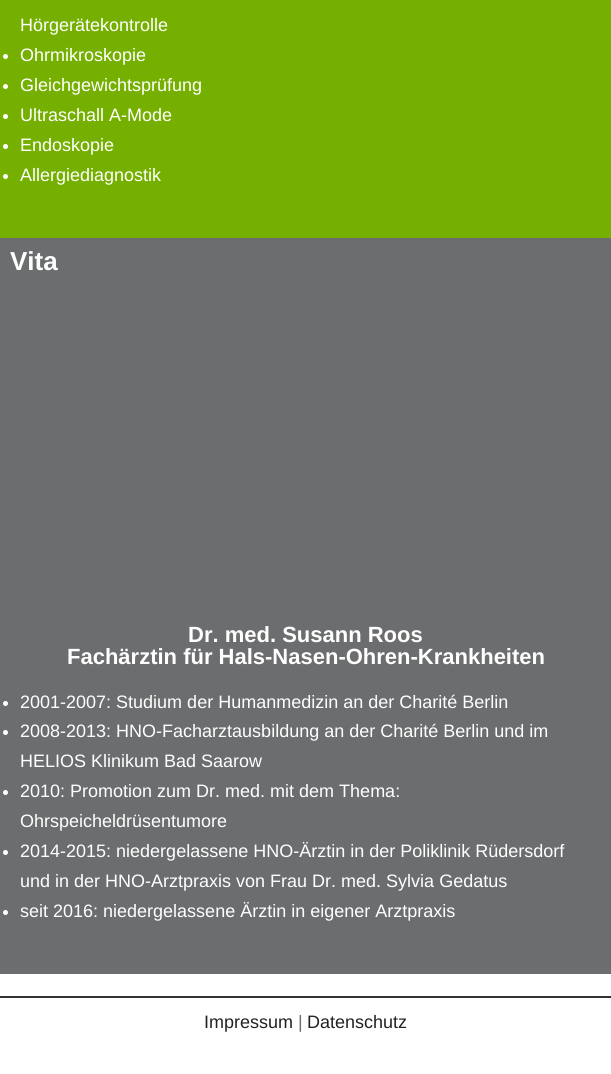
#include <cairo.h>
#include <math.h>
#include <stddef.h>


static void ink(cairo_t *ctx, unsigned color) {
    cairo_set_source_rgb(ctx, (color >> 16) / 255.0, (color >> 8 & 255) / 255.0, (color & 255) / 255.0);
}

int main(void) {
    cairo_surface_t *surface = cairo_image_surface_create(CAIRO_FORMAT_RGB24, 611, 1074);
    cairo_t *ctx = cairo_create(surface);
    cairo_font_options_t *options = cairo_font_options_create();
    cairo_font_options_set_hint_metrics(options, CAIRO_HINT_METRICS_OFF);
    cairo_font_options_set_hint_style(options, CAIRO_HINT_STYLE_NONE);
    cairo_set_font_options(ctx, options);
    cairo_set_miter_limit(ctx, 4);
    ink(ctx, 0xFFFFFF);
    cairo_paint(ctx);
    ink(ctx, 0x75B000);
    cairo_rectangle(ctx, 0, 0, 611, 238);
    cairo_fill(ctx);
    cairo_select_font_face(ctx, "Liberation Sans", CAIRO_FONT_SLANT_NORMAL, CAIRO_FONT_WEIGHT_NORMAL);
    cairo_set_font_size(ctx, 18);
    ink(ctx, 0xFFFFFF);
    cairo_move_to(ctx, 20, 31);
    cairo_show_text(ctx, "Hörgerätekontrolle");
    cairo_new_path(ctx);
    cairo_arc(ctx, 5.5, 56.5, 2.5, 0, 2 * M_PI);
    cairo_fill(ctx);
    cairo_move_to(ctx, 20, 61);
    cairo_show_text(ctx, "Ohrmikroskopie");
    cairo_new_path(ctx);
    cairo_arc(ctx, 5.5, 86.5, 2.5, 0, 2 * M_PI);
    cairo_fill(ctx);
    cairo_move_to(ctx, 20, 91);
    cairo_show_text(ctx, "Gleichgewichtsprüfung");
    cairo_new_path(ctx);
    cairo_arc(ctx, 5.5, 116.5, 2.5, 0, 2 * M_PI);
    cairo_fill(ctx);
    cairo_move_to(ctx, 20, 121);
    cairo_show_text(ctx, "Ultraschall A-Mode");
    cairo_new_path(ctx);
    cairo_arc(ctx, 5.5, 146.5, 2.5, 0, 2 * M_PI);
    cairo_fill(ctx);
    cairo_move_to(ctx, 20, 151);
    cairo_show_text(ctx, "Endoskopie");
    cairo_new_path(ctx);
    cairo_arc(ctx, 5.5, 176.5, 2.5, 0, 2 * M_PI);
    cairo_fill(ctx);
    cairo_move_to(ctx, 20, 181);
    cairo_show_text(ctx, "Allergiediagnostik");
    ink(ctx, 0x6B6D6F);
    cairo_rectangle(ctx, 0, 238, 611, 736);
    cairo_fill(ctx);
    cairo_select_font_face(ctx, "Liberation Sans", CAIRO_FONT_SLANT_NORMAL, CAIRO_FONT_WEIGHT_BOLD);
    cairo_set_font_size(ctx, 26);
    ink(ctx, 0xFFFFFF);
    cairo_move_to(ctx, 10, 270);
    cairo_show_text(ctx, "Vita");
    cairo_set_font_size(ctx, 22);
    cairo_move_to(ctx, 188, 642);
    cairo_show_text(ctx, "Dr. med. Susann Roos");
    cairo_move_to(ctx, 67, 664);
    cairo_show_text(ctx, "Fachärztin für Hals-Nasen-Ohren-Krankheiten");
    cairo_new_path(ctx);
    cairo_arc(ctx, 5.5, 703.5, 2.5, 0, 2 * M_PI);
    cairo_fill(ctx);
    cairo_select_font_face(ctx, "Liberation Sans", CAIRO_FONT_SLANT_NORMAL, CAIRO_FONT_WEIGHT_NORMAL);
    cairo_set_font_size(ctx, 18);
    cairo_move_to(ctx, 20, 708);
    cairo_show_text(ctx, "2001-2007: Studium der Humanmedizin an der Charité Berlin");
    cairo_new_path(ctx);
    cairo_arc(ctx, 5.5, 732.5, 2.5, 0, 2 * M_PI);
    cairo_fill(ctx);
    cairo_move_to(ctx, 20, 737);
    cairo_show_text(ctx, "2008-2013: HNO-Facharztausbildung an der Charité Berlin und im");
    cairo_move_to(ctx, 20, 767);
    cairo_show_text(ctx, "HELIOS Klinikum Bad Saarow");
    cairo_new_path(ctx);
    cairo_arc(ctx, 5.5, 792.5, 2.5, 0, 2 * M_PI);
    cairo_fill(ctx);
    cairo_move_to(ctx, 20, 797);
    cairo_show_text(ctx, "2010: Promotion zum Dr. med. mit dem Thema:");
    cairo_move_to(ctx, 20, 827);
    cairo_show_text(ctx, "Ohrspeicheldrüsentumore");
    cairo_new_path(ctx);
    cairo_arc(ctx, 5.5, 852.5, 2.5, 0, 2 * M_PI);
    cairo_fill(ctx);
    cairo_move_to(ctx, 20, 857);
    cairo_show_text(ctx, "2014-2015: niedergelassene HNO-Ärztin in der Poliklinik Rüdersdorf");
    cairo_move_to(ctx, 20, 887);
    cairo_show_text(ctx, "und in der HNO-Arztpraxis von Frau Dr. med. Sylvia Gedatus");
    cairo_new_path(ctx);
    cairo_arc(ctx, 5.5, 912.5, 2.5, 0, 2 * M_PI);
    cairo_fill(ctx);
    cairo_move_to(ctx, 20, 917);
    cairo_show_text(ctx, "seit 2016: niedergelassene Ärztin in eigener Arztpraxis");
    ink(ctx, 0x333333);
    cairo_rectangle(ctx, 0, 996, 611, 2);
    cairo_fill(ctx);
    ink(ctx, 0x222222);
    cairo_move_to(ctx, 204, 1028);
    cairo_show_text(ctx, "Impressum");
    ink(ctx, 0x6B6D6F);
    cairo_move_to(ctx, 298, 1028);
    cairo_show_text(ctx, "|");
    ink(ctx, 0x222222);
    cairo_move_to(ctx, 307, 1028);
    cairo_show_text(ctx, "Datenschutz");
    cairo_surface_write_to_png(surface, "image.png");
    cairo_font_options_destroy(options);
    cairo_destroy(ctx);
    cairo_surface_destroy(surface);
    return 0;
}
